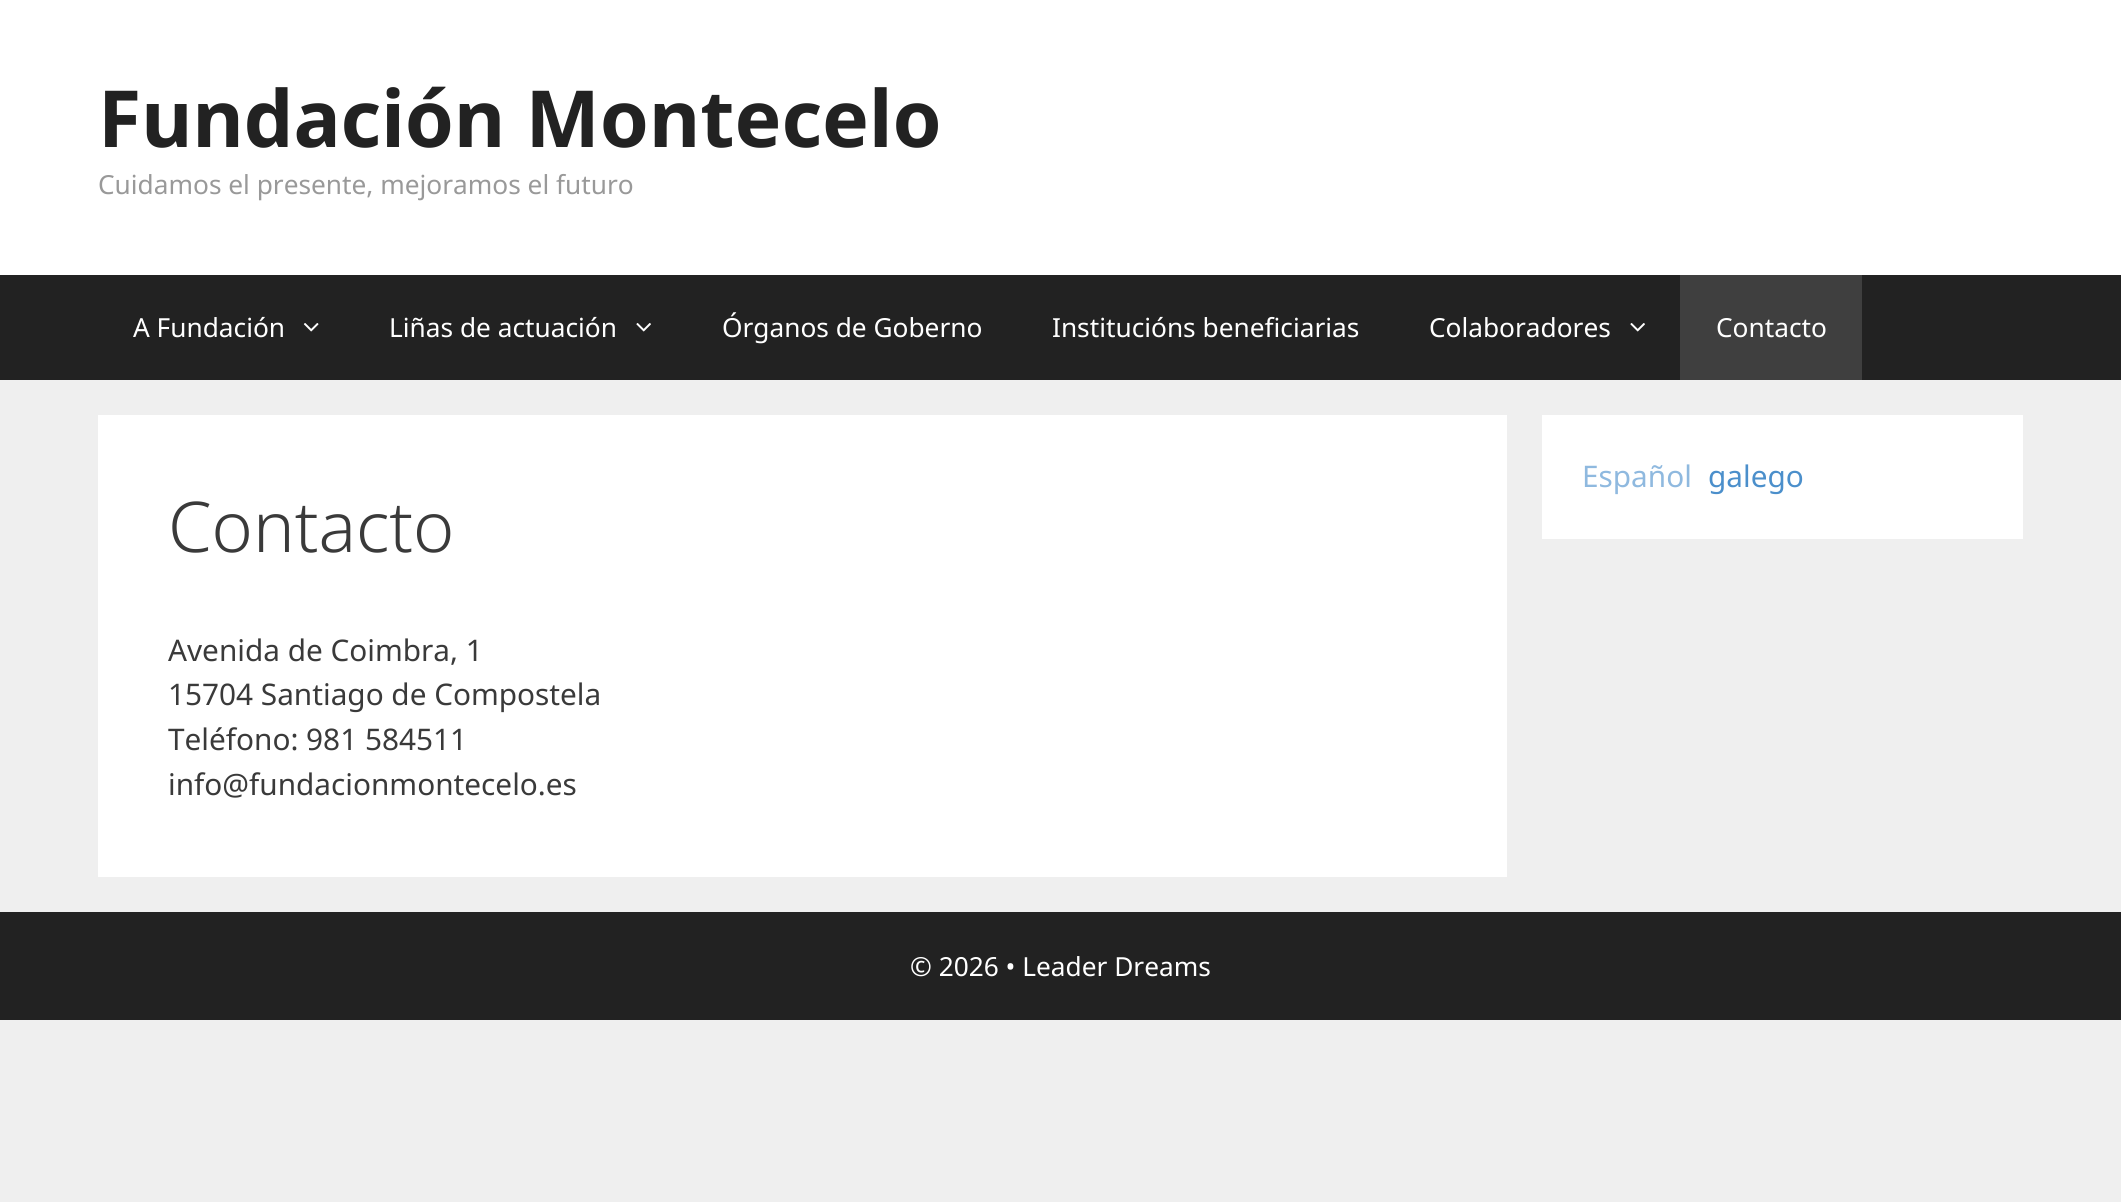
#include <cairo.h>
#include <math.h>
#include <stddef.h>

typedef struct { double x, y; const char *s; } line_t;

static void ink(cairo_t *ctx, unsigned color) {
    cairo_set_source_rgb(ctx, (color >> 16) / 255.0, (color >> 8 & 255) / 255.0, (color & 255) / 255.0);
}

static void paste(cairo_t *ctx, const char *path, double x, double y, double w, double h) {
    cairo_surface_t *image = cairo_image_surface_create_from_png(path);
    cairo_save(ctx);
    cairo_set_source_surface(ctx, image, x, y);
    cairo_rectangle(ctx, x, y, w, h);
    cairo_fill(ctx);
    cairo_restore(ctx);
    cairo_surface_destroy(image);
}

int main(void) {
    cairo_surface_t *surface = cairo_image_surface_create(CAIRO_FORMAT_RGB24, 2121, 1202);
    cairo_t *ctx = cairo_create(surface);
    cairo_font_options_t *options = cairo_font_options_create();
    cairo_font_options_set_hint_metrics(options, CAIRO_HINT_METRICS_OFF);
    cairo_font_options_set_hint_style(options, CAIRO_HINT_STYLE_NONE);
    cairo_set_font_options(ctx, options);
    cairo_set_miter_limit(ctx, 4);
    ink(ctx, 0xEFEFEF);
    cairo_paint(ctx);
    ink(ctx, 0xFFFFFF);
    cairo_rectangle(ctx, 0, 0, 2121, 275);
    cairo_fill(ctx);
    cairo_select_font_face(ctx, "Noto Sans", CAIRO_FONT_SLANT_NORMAL, CAIRO_FONT_WEIGHT_BOLD);
    cairo_set_font_size(ctx, 78.75);
    ink(ctx, 0x222222);
    cairo_move_to(ctx, 98, 147);
    cairo_show_text(ctx, "Fundación Montecelo");
    cairo_select_font_face(ctx, "Noto Sans", CAIRO_FONT_SLANT_NORMAL, CAIRO_FONT_WEIGHT_NORMAL);
    cairo_set_font_size(ctx, 26.25);
    ink(ctx, 0x999999);
    cairo_move_to(ctx, 98, 194);
    cairo_show_text(ctx, "Cuidamos el presente, mejoramos el futuro");
    ink(ctx, 0x222222);
    cairo_rectangle(ctx, 0, 275, 2121, 105);
    cairo_fill(ctx);
    ink(ctx, 0xFFFFFF);
    cairo_move_to(ctx, 133, 337);
    cairo_show_text(ctx, "A Fundación");
    paste(ctx, "media/1.png", 303, 323, 16, 9);
    cairo_move_to(ctx, 389, 337);
    cairo_show_text(ctx, "Liñas de actuación");
    paste(ctx, "media/2.png", 636, 323, 15, 9);
    {
        static const line_t items[] = {
            {722, 337, "Órganos de Goberno"},
            {1052, 337, "Institucións beneficiarias"},
            {1429, 337, "Colaboradores"},
        };
        for (size_t i = 0; i < sizeof items / sizeof *items; i++) {
            cairo_move_to(ctx, items[i].x, items[i].y);
            cairo_show_text(ctx, items[i].s);
        }
    }
    paste(ctx, "media/2.png", 1630, 323, 15, 9);
    ink(ctx, 0x3F3F3F);
    cairo_rectangle(ctx, 1680, 275, 182, 105);
    cairo_fill(ctx);
    ink(ctx, 0xFFFFFF);
    cairo_move_to(ctx, 1716, 337);
    cairo_show_text(ctx, "Contacto");
    cairo_rectangle(ctx, 1542, 415, 481, 124);
    cairo_fill(ctx);
    cairo_set_font_size(ctx, 29.75);
    ink(ctx, 0x8FB9DF);
    cairo_move_to(ctx, 1582, 487);
    cairo_show_text(ctx, "Español");
    ink(ctx, 0x4B8FCB);
    cairo_move_to(ctx, 1708, 487);
    cairo_show_text(ctx, "galego");
    ink(ctx, 0xFFFFFF);
    cairo_rectangle(ctx, 98, 415, 1409, 462);
    cairo_fill(ctx);
    cairo_select_font_face(ctx, "Noto Sans Light", CAIRO_FONT_SLANT_NORMAL, CAIRO_FONT_WEIGHT_NORMAL);
    cairo_set_font_size(ctx, 70);
    ink(ctx, 0x3A3A3A);
    cairo_move_to(ctx, 168, 552);
    cairo_show_text(ctx, "Contacto");
    cairo_select_font_face(ctx, "Noto Sans", CAIRO_FONT_SLANT_NORMAL, CAIRO_FONT_WEIGHT_NORMAL);
    cairo_set_font_size(ctx, 29.75);
    {
        static const line_t items[] = {
            {168, 661, "Avenida de Coimbra, 1"},
            {168, 705, "15704 Santiago de Compostela"},
            {168, 750, "Teléfono: 981 584511"},
            {168, 795, "info@fundacionmontecelo.es"},
        };
        for (size_t i = 0; i < sizeof items / sizeof *items; i++) {
            cairo_move_to(ctx, items[i].x, items[i].y);
            cairo_show_text(ctx, items[i].s);
        }
    }
    ink(ctx, 0x222222);
    cairo_rectangle(ctx, 0, 912, 2121, 108);
    cairo_fill(ctx);
    cairo_set_font_size(ctx, 26.25);
    ink(ctx, 0xFFFFFF);
    cairo_move_to(ctx, 910, 976);
    cairo_show_text(ctx, "© 2026 • Leader Dreams");
    cairo_surface_write_to_png(surface, "image.png");
    cairo_font_options_destroy(options);
    cairo_destroy(ctx);
    cairo_surface_destroy(surface);
    return 0;
}
